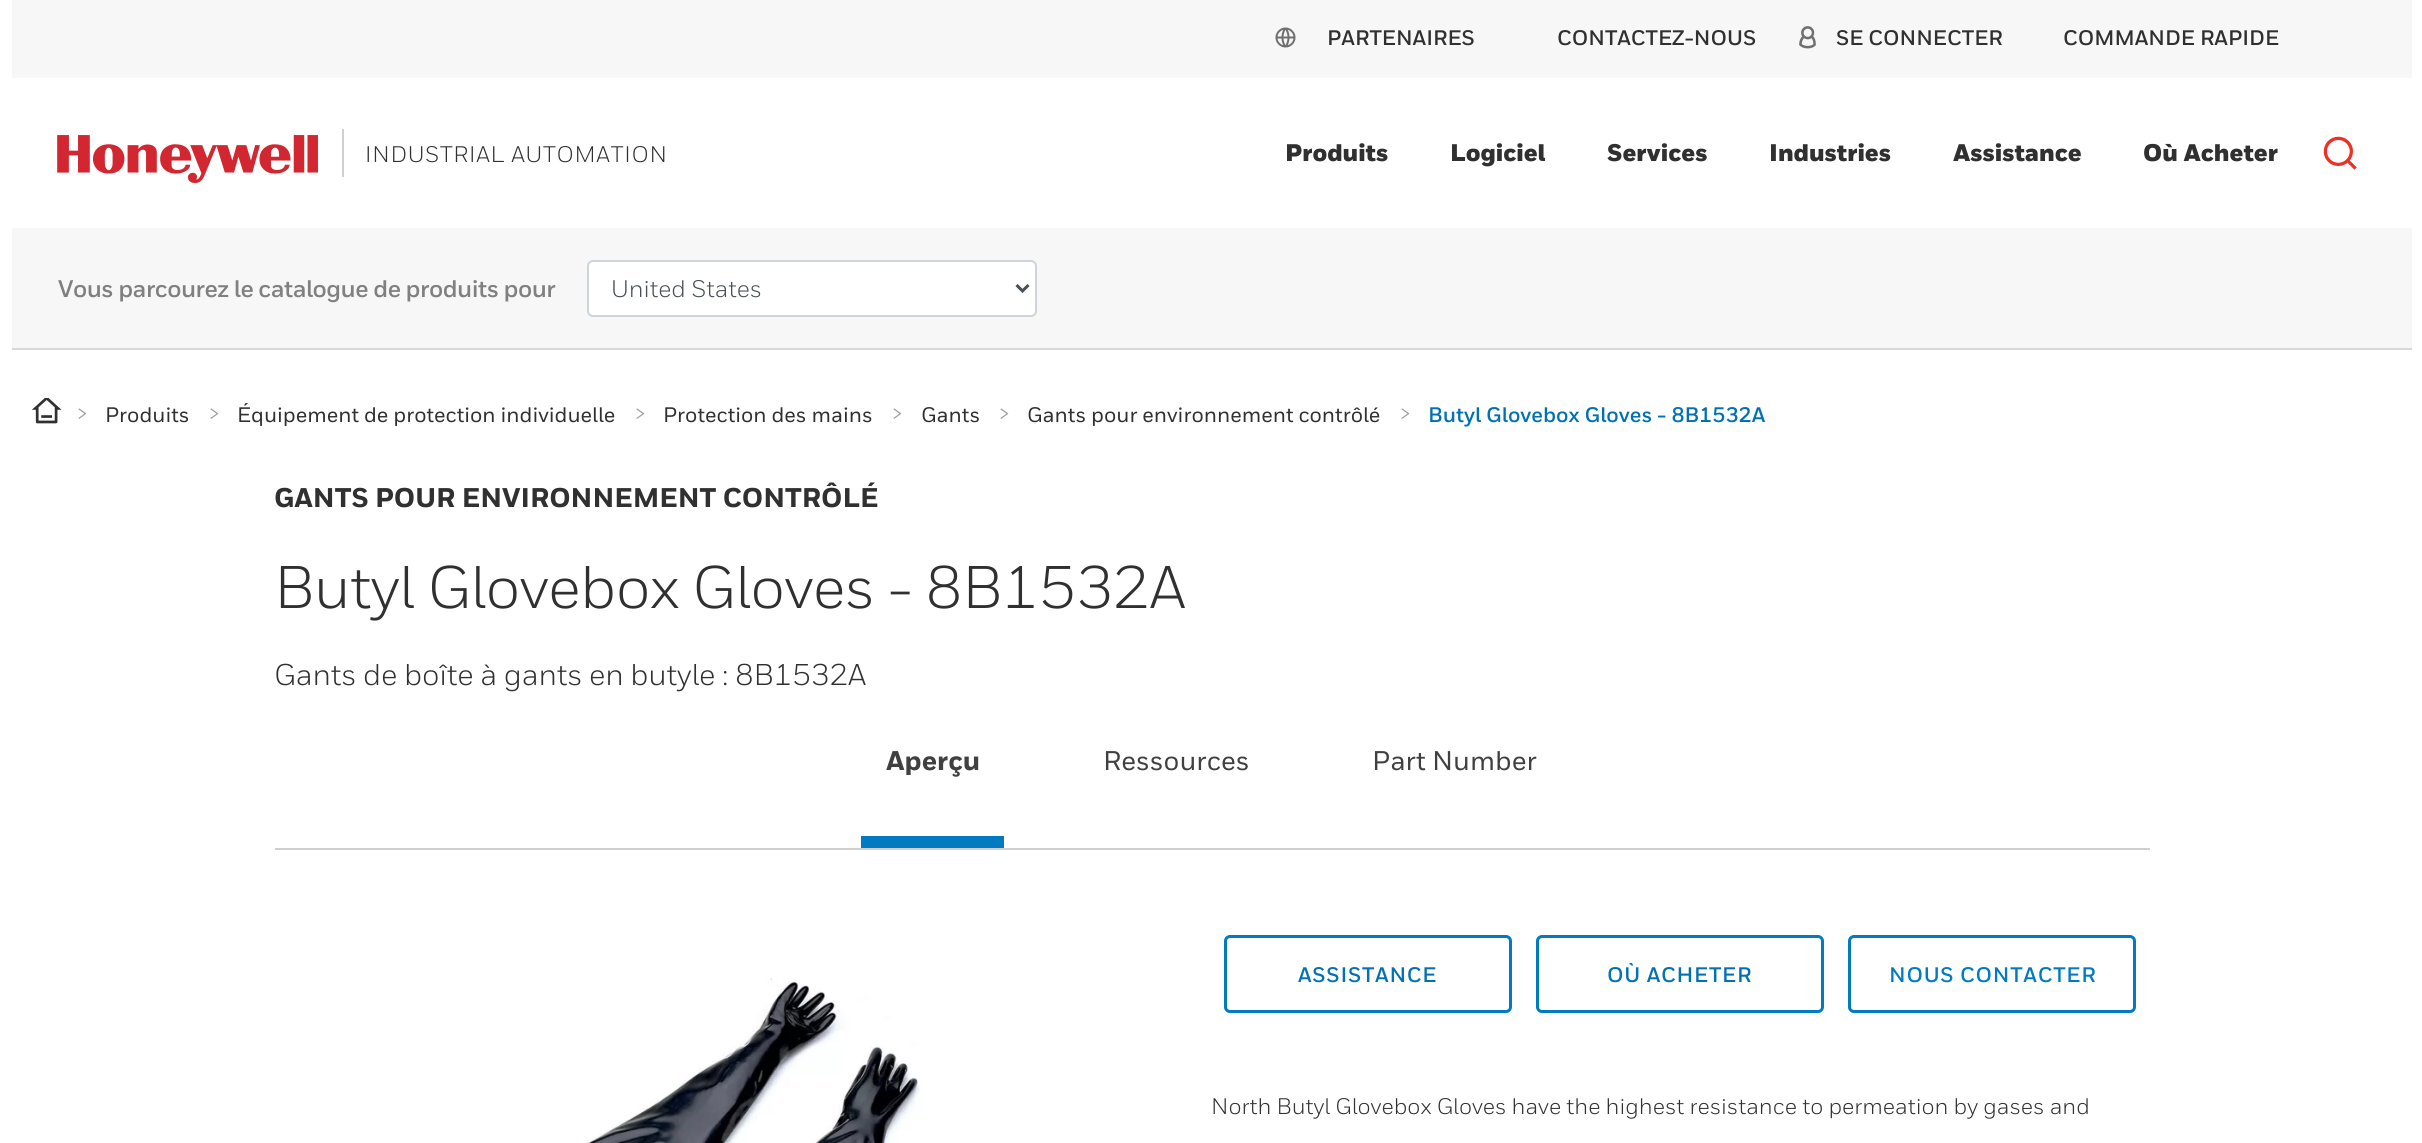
#include <cairo.h>
#include <math.h>
#include <stddef.h>

typedef struct { double x, y; const char *s; } line_t;

static void ink(cairo_t *ctx, unsigned color) {
    cairo_set_source_rgb(ctx, (color >> 16) / 255.0, (color >> 8 & 255) / 255.0, (color & 255) / 255.0);
}

static void write_spaced(cairo_t *ctx, double x, double y, const char *s, double letter, double word) {
    cairo_move_to(ctx, x, y);
    while (*s) {
        char ch[5] = {0};
        int n = 0;
        do ch[n++] = *s++; while ((*s & 0xC0) == 0x80);
        cairo_show_text(ctx, ch);
        cairo_rel_move_to(ctx, letter + word * (*ch == ' '), 0);
    }
}

static void round_path(cairo_t *ctx, double x, double y, double w, double h, double r) {
    cairo_new_sub_path(ctx);
    cairo_arc(ctx, x + w - r, y + h - r, r, 0, M_PI / 2);
    cairo_arc(ctx, x + r, y + h - r, r, M_PI / 2, M_PI);
    cairo_arc(ctx, x + r, y + r, r, M_PI, 1.5 * M_PI);
    cairo_arc(ctx, x + w - r, y + r, r, 1.5 * M_PI, 2 * M_PI);
    cairo_close_path(ctx);
}

static void paste(cairo_t *ctx, const char *path, double x, double y, double w, double h) {
    cairo_surface_t *image = cairo_image_surface_create_from_png(path);
    cairo_save(ctx);
    cairo_set_source_surface(ctx, image, x, y);
    cairo_rectangle(ctx, x, y, w, h);
    cairo_fill(ctx);
    cairo_restore(ctx);
    cairo_surface_destroy(image);
}

int main(void) {
    cairo_surface_t *surface = cairo_image_surface_create(CAIRO_FORMAT_RGB24, 2422, 1143);
    cairo_t *ctx = cairo_create(surface);
    cairo_font_options_t *options = cairo_font_options_create();
    cairo_font_options_set_hint_metrics(options, CAIRO_HINT_METRICS_OFF);
    cairo_font_options_set_hint_style(options, CAIRO_HINT_STYLE_NONE);
    cairo_set_font_options(ctx, options);
    cairo_set_miter_limit(ctx, 4);
    ink(ctx, 0xFFFFFF);
    cairo_paint(ctx);
    ink(ctx, 0xF7F7F7);
    cairo_rectangle(ctx, 12, 0, 2400, 78);
    cairo_fill(ctx);
    paste(ctx, "media/1.png", 1275, 27, 21, 21);
    cairo_select_font_face(ctx, "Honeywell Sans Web", CAIRO_FONT_SLANT_NORMAL, CAIRO_FONT_WEIGHT_BOLD);
    cairo_set_font_size(ctx, 21);
    ink(ctx, 0x303030);
    cairo_move_to(ctx, 1327, 45);
    cairo_show_text(ctx, "PARTENAIRES");
    cairo_move_to(ctx, 1557, 45);
    cairo_show_text(ctx, "CONTACTEZ-NOUS");
    paste(ctx, "media/2.png", 1799, 26, 17, 23);
    cairo_move_to(ctx, 1836, 45);
    cairo_show_text(ctx, "SE CONNECTER");
    cairo_move_to(ctx, 2063, 45);
    cairo_show_text(ctx, "COMMANDE RAPIDE");
    ink(ctx, 0xD8D8D8);
    cairo_rectangle(ctx, 12, 348, 2400, 2);
    cairo_fill(ctx);
    paste(ctx, "media/3.png", 57, 135, 261, 48);
    ink(ctx, 0xD0D0D0);
    cairo_rectangle(ctx, 342, 129, 2, 48);
    cairo_fill(ctx);
    cairo_select_font_face(ctx, "Honeywell Sans Web", CAIRO_FONT_SLANT_NORMAL, CAIRO_FONT_WEIGHT_NORMAL);
    cairo_set_font_size(ctx, 22.5);
    ink(ctx, 0x303030);
    write_spaced(ctx, 365, 162, "INDUSTRIAL AUTOMATION", 0.75, 0);
    cairo_select_font_face(ctx, "Honeywell Sans Web Black", CAIRO_FONT_SLANT_NORMAL, CAIRO_FONT_WEIGHT_NORMAL);
    cairo_set_font_size(ctx, 24);
    {
        static const line_t items[] = {
            {1285, 161, "Produits"},
            {1450, 161, "Logiciel"},
            {1607, 161, "Services"},
            {1769, 161, "Industries"},
            {1953, 161, "Assistance"},
            {2143, 161, "Où Acheter"},
        };
        for (size_t i = 0; i < sizeof items / sizeof *items; i++) {
            cairo_move_to(ctx, items[i].x, items[i].y);
            cairo_show_text(ctx, items[i].s);
        }
    }
    paste(ctx, "media/4.png", 2323, 136, 34, 34);
    ink(ctx, 0xF7F7F7);
    cairo_rectangle(ctx, 12, 228, 2400, 120);
    cairo_fill(ctx);
    cairo_select_font_face(ctx, "Honeywell Sans Web", CAIRO_FONT_SLANT_NORMAL, CAIRO_FONT_WEIGHT_BOLD);
    ink(ctx, 0x808080);
    write_spaced(ctx, 58, 297, "Vous parcourez le catalogue de produits pour", -0.5, 0);
    ink(ctx, 0xFFFFFF);
    round_path(ctx, 588, 261, 448, 55, 5);
    cairo_fill_preserve(ctx);
    ink(ctx, 0xCED4DA);
    cairo_stroke(ctx);
    cairo_new_path(ctx);
    cairo_move_to(ctx, 1016.5, 285);
    cairo_line_to(ctx, 1022.5, 291);
    cairo_line_to(ctx, 1028.5, 285);
    ink(ctx, 0x495057);
    cairo_set_line_width(ctx, 3);
    cairo_stroke(ctx);
    cairo_select_font_face(ctx, "Honeywell Sans Web", CAIRO_FONT_SLANT_NORMAL, CAIRO_FONT_WEIGHT_NORMAL);
    cairo_move_to(ctx, 611, 297);
    cairo_show_text(ctx, "United States");
    paste(ctx, "media/5.png", 32, 398, 30, 26);
    cairo_set_font_size(ctx, 27);
    ink(ctx, 0xA0A0A0);
    cairo_move_to(ctx, 76, 422);
    cairo_show_text(ctx, ">");
    cairo_select_font_face(ctx, "Honeywell Sans Web Medium", CAIRO_FONT_SLANT_NORMAL, CAIRO_FONT_WEIGHT_NORMAL);
    cairo_set_font_size(ctx, 21);
    ink(ctx, 0x303030);
    cairo_move_to(ctx, 105, 422);
    cairo_show_text(ctx, "Produits");
    cairo_select_font_face(ctx, "Honeywell Sans Web", CAIRO_FONT_SLANT_NORMAL, CAIRO_FONT_WEIGHT_NORMAL);
    cairo_set_font_size(ctx, 27);
    ink(ctx, 0xA0A0A0);
    cairo_move_to(ctx, 208, 422);
    cairo_show_text(ctx, ">");
    cairo_select_font_face(ctx, "Honeywell Sans Web Medium", CAIRO_FONT_SLANT_NORMAL, CAIRO_FONT_WEIGHT_NORMAL);
    cairo_set_font_size(ctx, 21);
    ink(ctx, 0x303030);
    cairo_move_to(ctx, 237, 422);
    cairo_show_text(ctx, "Équipement de protection individuelle");
    cairo_select_font_face(ctx, "Honeywell Sans Web", CAIRO_FONT_SLANT_NORMAL, CAIRO_FONT_WEIGHT_NORMAL);
    cairo_set_font_size(ctx, 27);
    ink(ctx, 0xA0A0A0);
    cairo_move_to(ctx, 634, 422);
    cairo_show_text(ctx, ">");
    cairo_select_font_face(ctx, "Honeywell Sans Web Medium", CAIRO_FONT_SLANT_NORMAL, CAIRO_FONT_WEIGHT_NORMAL);
    cairo_set_font_size(ctx, 21);
    ink(ctx, 0x303030);
    cairo_move_to(ctx, 663, 422);
    cairo_show_text(ctx, "Protection des mains");
    cairo_select_font_face(ctx, "Honeywell Sans Web", CAIRO_FONT_SLANT_NORMAL, CAIRO_FONT_WEIGHT_NORMAL);
    cairo_set_font_size(ctx, 27);
    ink(ctx, 0xA0A0A0);
    cairo_move_to(ctx, 891, 422);
    cairo_show_text(ctx, ">");
    cairo_select_font_face(ctx, "Honeywell Sans Web Medium", CAIRO_FONT_SLANT_NORMAL, CAIRO_FONT_WEIGHT_NORMAL);
    cairo_set_font_size(ctx, 21);
    ink(ctx, 0x303030);
    cairo_move_to(ctx, 921, 422);
    cairo_show_text(ctx, "Gants");
    cairo_select_font_face(ctx, "Honeywell Sans Web", CAIRO_FONT_SLANT_NORMAL, CAIRO_FONT_WEIGHT_NORMAL);
    cairo_set_font_size(ctx, 27);
    ink(ctx, 0xA0A0A0);
    cairo_move_to(ctx, 998, 422);
    cairo_show_text(ctx, ">");
    cairo_select_font_face(ctx, "Honeywell Sans Web Medium", CAIRO_FONT_SLANT_NORMAL, CAIRO_FONT_WEIGHT_NORMAL);
    cairo_set_font_size(ctx, 21);
    ink(ctx, 0x303030);
    cairo_move_to(ctx, 1027, 422);
    cairo_show_text(ctx, "Gants pour environnement contrôlé");
    cairo_select_font_face(ctx, "Honeywell Sans Web", CAIRO_FONT_SLANT_NORMAL, CAIRO_FONT_WEIGHT_NORMAL);
    cairo_set_font_size(ctx, 27);
    ink(ctx, 0xA0A0A0);
    cairo_move_to(ctx, 1399, 422);
    cairo_show_text(ctx, ">");
    cairo_select_font_face(ctx, "Honeywell Sans Web", CAIRO_FONT_SLANT_NORMAL, CAIRO_FONT_WEIGHT_BOLD);
    cairo_set_font_size(ctx, 21);
    ink(ctx, 0x0071B3);
    cairo_move_to(ctx, 1428, 422);
    cairo_show_text(ctx, "Butyl Glovebox Gloves - 8B1532A");
    cairo_select_font_face(ctx, "Honeywell Sans Web ExtraBold", CAIRO_FONT_SLANT_NORMAL, CAIRO_FONT_WEIGHT_NORMAL);
    cairo_set_font_size(ctx, 27);
    ink(ctx, 0x303030);
    cairo_move_to(ctx, 274, 507);
    cairo_show_text(ctx, "GANTS POUR ENVIRONNEMENT CONTRÔLÉ");
    cairo_select_font_face(ctx, "Honeywell Sans Web", CAIRO_FONT_SLANT_NORMAL, CAIRO_FONT_WEIGHT_NORMAL);
    cairo_set_font_size(ctx, 60);
    write_spaced(ctx, 274, 608, "Butyl Glovebox Gloves - 8B1532A", -0.6, 0);
    cairo_set_font_size(ctx, 30);
    write_spaced(ctx, 274, 685, "Gants de boîte à gants en butyle : 8B1532A", -0.15, 0);
    ink(ctx, 0xD0D0D0);
    cairo_rectangle(ctx, 275, 848, 1875, 2);
    cairo_fill(ctx);
    ink(ctx, 0x007BC2);
    cairo_rectangle(ctx, 861, 836, 143, 12);
    cairo_fill(ctx);
    cairo_select_font_face(ctx, "Honeywell Sans Web ExtraBold", CAIRO_FONT_SLANT_NORMAL, CAIRO_FONT_WEIGHT_NORMAL);
    cairo_set_font_size(ctx, 27);
    ink(ctx, 0x404040);
    cairo_move_to(ctx, 886, 770);
    cairo_show_text(ctx, "Aperçu");
    cairo_select_font_face(ctx, "Honeywell Sans Web Medium", CAIRO_FONT_SLANT_NORMAL, CAIRO_FONT_WEIGHT_NORMAL);
    cairo_move_to(ctx, 1103, 770);
    cairo_show_text(ctx, "Ressources");
    cairo_move_to(ctx, 1372, 770);
    cairo_show_text(ctx, "Part Number");
    paste(ctx, "media/6.png", 585, 978, 336, 165);
    round_path(ctx, 1225.5, 936.5, 285, 75, 4.5);
    ink(ctx, 0x007BC2);
    cairo_stroke(ctx);
    cairo_select_font_face(ctx, "Honeywell Sans Web", CAIRO_FONT_SLANT_NORMAL, CAIRO_FONT_WEIGHT_BOLD);
    cairo_set_font_size(ctx, 21);
    ink(ctx, 0x0071B3);
    write_spaced(ctx, 1298, 982, "ASSISTANCE", 0.75, 0);
    round_path(ctx, 1537.5, 936.5, 285, 75, 4.5);
    ink(ctx, 0x007BC2);
    cairo_stroke(ctx);
    ink(ctx, 0x0071B3);
    write_spaced(ctx, 1607, 982, "OÙ ACHETER", 0.75, 0);
    round_path(ctx, 1849.5, 936.5, 285, 75, 4.5);
    ink(ctx, 0x007BC2);
    cairo_stroke(ctx);
    write_spaced(ctx, 1889, 982, "NOUS CONTACTER", 0.75, 0);
    cairo_select_font_face(ctx, "Honeywell Sans Web", CAIRO_FONT_SLANT_NORMAL, CAIRO_FONT_WEIGHT_NORMAL);
    cairo_set_font_size(ctx, 22.5);
    ink(ctx, 0x303030);
    cairo_move_to(ctx, 1211, 1114);
    cairo_show_text(ctx, "North Butyl Glovebox Gloves have the highest resistance to permeation by gases and");
    cairo_surface_write_to_png(surface, "image.png");
    cairo_font_options_destroy(options);
    cairo_destroy(ctx);
    cairo_surface_destroy(surface);
    return 0;
}
